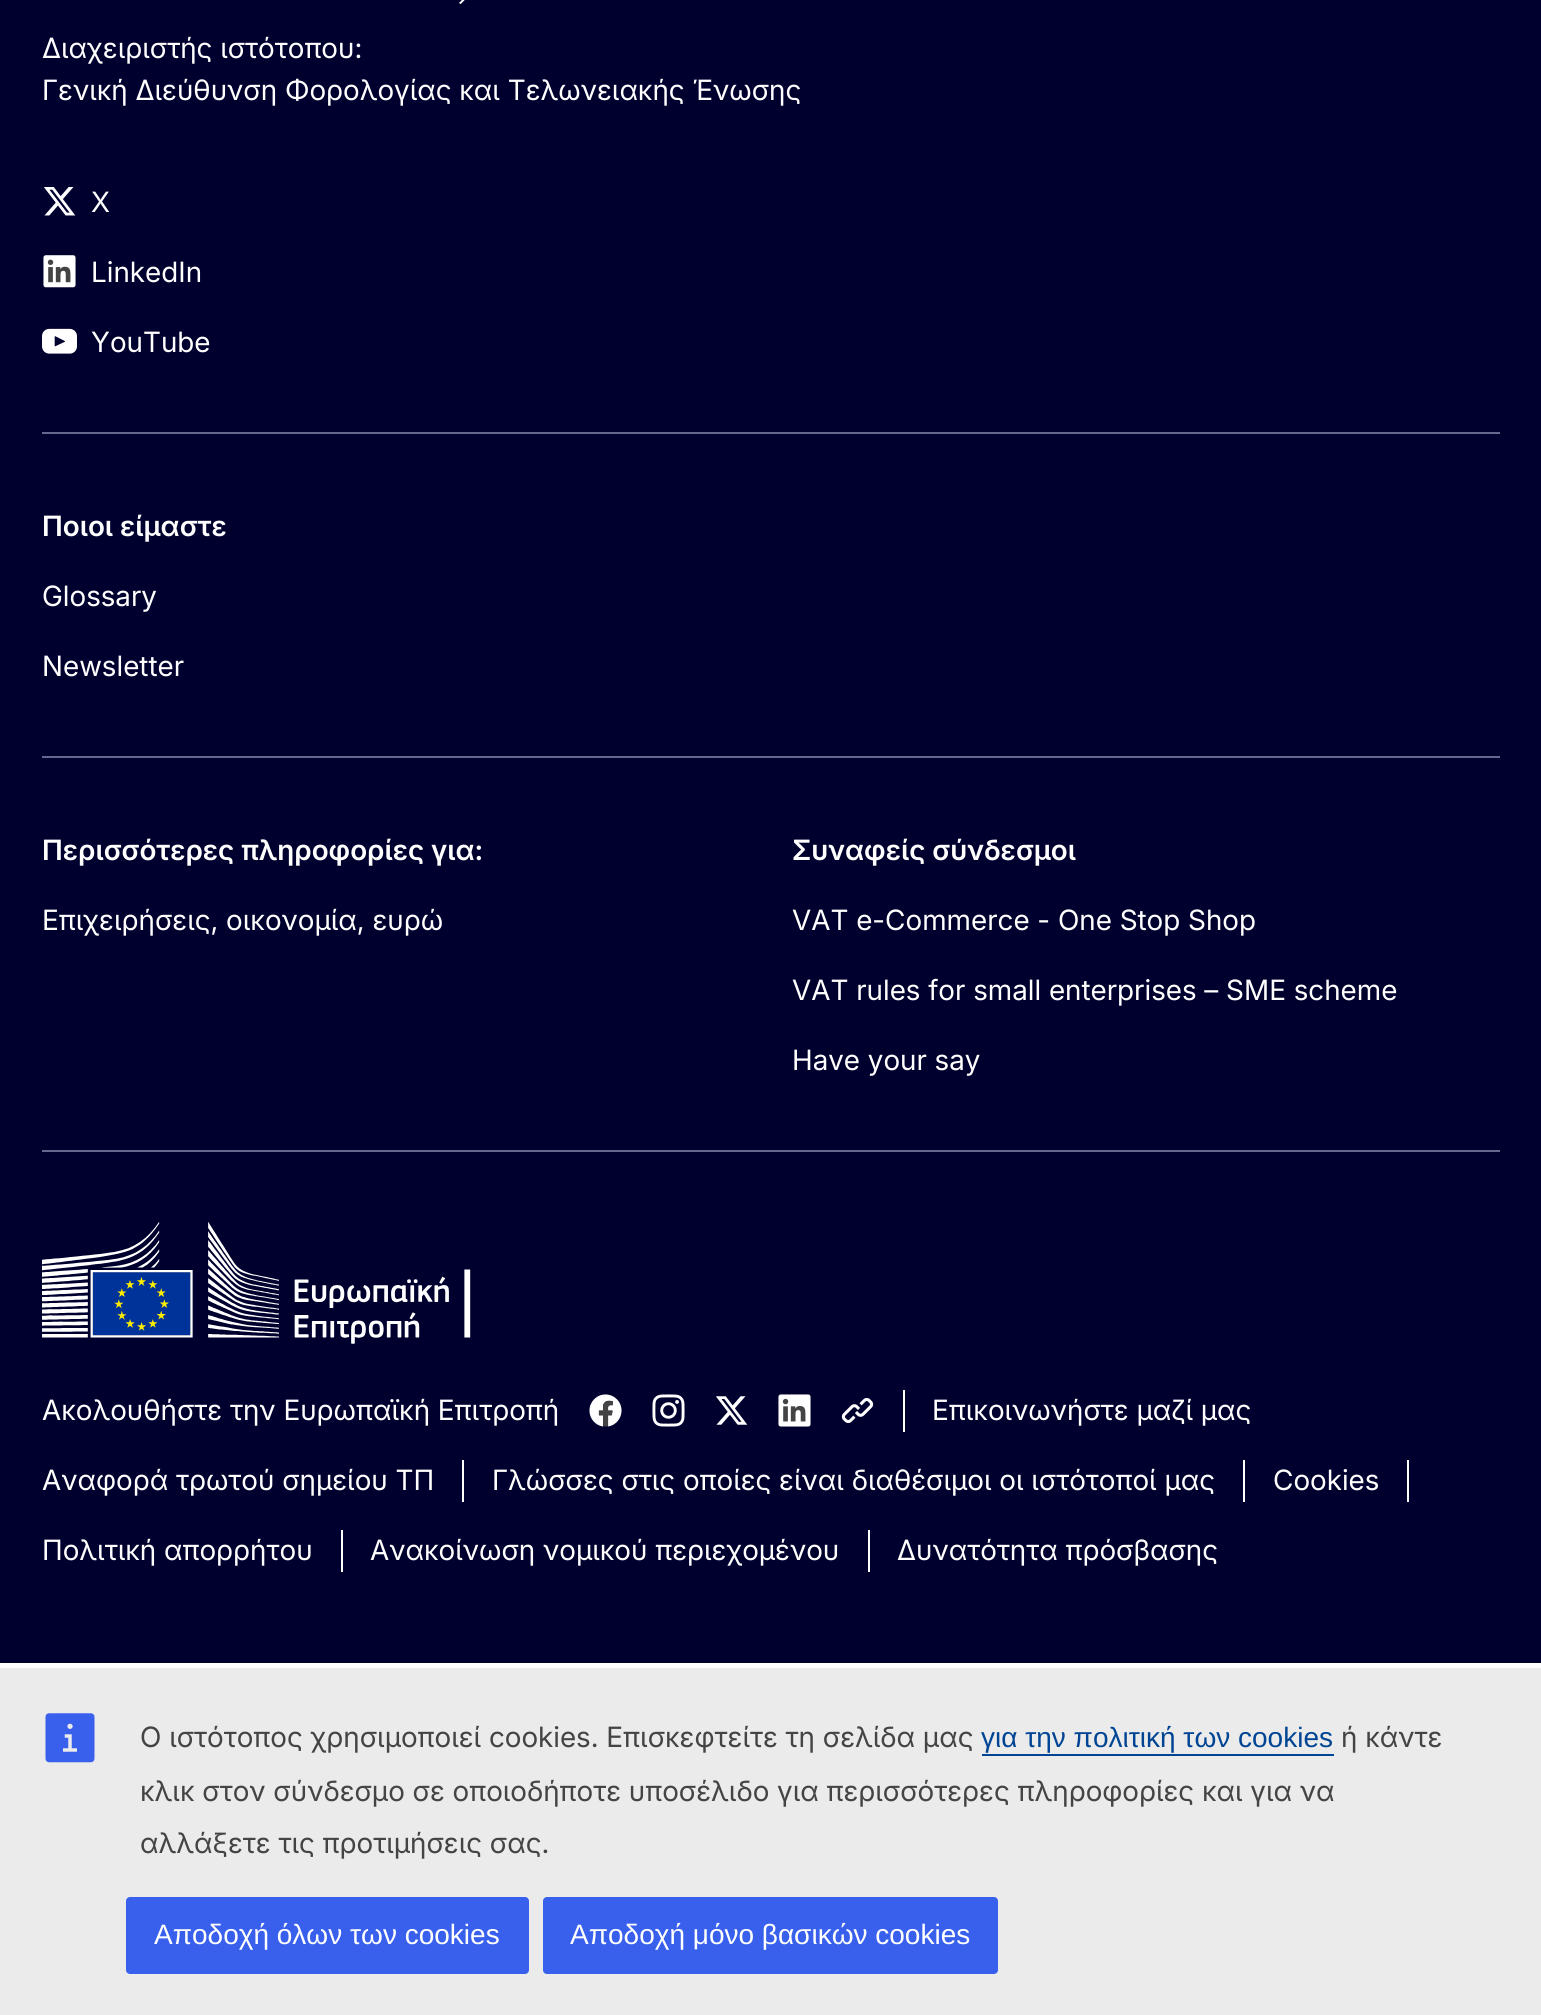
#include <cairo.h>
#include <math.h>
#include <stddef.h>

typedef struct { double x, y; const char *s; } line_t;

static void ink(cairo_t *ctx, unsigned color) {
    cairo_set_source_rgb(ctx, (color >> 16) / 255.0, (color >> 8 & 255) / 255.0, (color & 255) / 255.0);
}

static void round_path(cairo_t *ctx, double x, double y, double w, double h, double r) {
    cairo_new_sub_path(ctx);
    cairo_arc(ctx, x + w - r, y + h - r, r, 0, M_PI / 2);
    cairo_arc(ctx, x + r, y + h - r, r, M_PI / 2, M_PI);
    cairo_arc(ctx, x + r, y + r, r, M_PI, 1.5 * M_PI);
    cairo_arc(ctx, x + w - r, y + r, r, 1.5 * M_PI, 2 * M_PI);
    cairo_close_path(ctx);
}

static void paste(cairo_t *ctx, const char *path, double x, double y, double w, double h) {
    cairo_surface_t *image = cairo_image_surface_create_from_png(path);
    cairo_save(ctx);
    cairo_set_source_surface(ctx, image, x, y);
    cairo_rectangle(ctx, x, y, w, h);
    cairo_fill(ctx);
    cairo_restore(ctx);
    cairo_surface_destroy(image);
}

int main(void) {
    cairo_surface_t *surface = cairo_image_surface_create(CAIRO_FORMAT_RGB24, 1541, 2015);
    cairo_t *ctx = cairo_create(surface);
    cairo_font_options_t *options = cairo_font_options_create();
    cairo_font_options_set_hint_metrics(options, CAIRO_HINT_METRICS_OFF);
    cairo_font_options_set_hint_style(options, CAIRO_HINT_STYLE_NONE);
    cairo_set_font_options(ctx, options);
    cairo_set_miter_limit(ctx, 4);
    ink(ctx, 0xFFFFFF);
    cairo_paint(ctx);
    ink(ctx, 0x00002E);
    cairo_rectangle(ctx, 0, 0, 1541, 1663);
    cairo_fill(ctx);
    paste(ctx, "media/1.png", 459, 0, 6, 5);
    cairo_select_font_face(ctx, "Inter", CAIRO_FONT_SLANT_NORMAL, CAIRO_FONT_WEIGHT_NORMAL);
    cairo_set_font_size(ctx, 28);
    ink(ctx, 0xFFFFFF);
    cairo_move_to(ctx, 42, 58);
    cairo_show_text(ctx, "Διαχειριστής ιστότοπου:");
    cairo_move_to(ctx, 42, 100);
    cairo_show_text(ctx, "Γενική Διεύθυνση Φορολογίας και Τελωνειακής Ένωσης");
    paste(ctx, "media/2.png", 44, 187, 32, 29);
    cairo_move_to(ctx, 91, 212);
    cairo_show_text(ctx, "X");
    paste(ctx, "media/3.png", 43, 255, 33, 33);
    cairo_move_to(ctx, 91, 282);
    cairo_show_text(ctx, "LinkedIn");
    paste(ctx, "media/4.png", 42, 328, 35, 26);
    cairo_move_to(ctx, 91, 352);
    cairo_show_text(ctx, "YouTube");
    ink(ctx, 0x64688C);
    cairo_rectangle(ctx, 42, 432, 1458, 2);
    cairo_fill(ctx);
    cairo_select_font_face(ctx, "Inter SemiBold", CAIRO_FONT_SLANT_NORMAL, CAIRO_FONT_WEIGHT_NORMAL);
    ink(ctx, 0xFFFFFF);
    cairo_move_to(ctx, 42, 536);
    cairo_show_text(ctx, "Ποιοι είμαστε");
    cairo_select_font_face(ctx, "Inter", CAIRO_FONT_SLANT_NORMAL, CAIRO_FONT_WEIGHT_NORMAL);
    cairo_move_to(ctx, 42, 606);
    cairo_show_text(ctx, "Glossary");
    cairo_move_to(ctx, 42, 676);
    cairo_show_text(ctx, "Newsletter");
    ink(ctx, 0x64688C);
    cairo_rectangle(ctx, 42, 756, 1458, 2);
    cairo_fill(ctx);
    cairo_select_font_face(ctx, "Inter SemiBold", CAIRO_FONT_SLANT_NORMAL, CAIRO_FONT_WEIGHT_NORMAL);
    ink(ctx, 0xFFFFFF);
    cairo_move_to(ctx, 42, 860);
    cairo_show_text(ctx, "Περισσότερες πληροφορίες για:");
    cairo_select_font_face(ctx, "Inter", CAIRO_FONT_SLANT_NORMAL, CAIRO_FONT_WEIGHT_NORMAL);
    cairo_move_to(ctx, 42, 930);
    cairo_show_text(ctx, "Επιχειρήσεις, οικονομία, ευρώ");
    cairo_select_font_face(ctx, "Inter SemiBold", CAIRO_FONT_SLANT_NORMAL, CAIRO_FONT_WEIGHT_NORMAL);
    cairo_move_to(ctx, 792, 860);
    cairo_show_text(ctx, "Συναφείς σύνδεσμοι");
    cairo_select_font_face(ctx, "Inter", CAIRO_FONT_SLANT_NORMAL, CAIRO_FONT_WEIGHT_NORMAL);
    {
        static const line_t items[] = {
            {792, 930, "VAT e-Commerce - One Stop Shop"},
            {792, 1000, "VAT rules for small enterprises – SME scheme"},
            {792, 1070, "Have your say"},
        };
        for (size_t i = 0; i < sizeof items / sizeof *items; i++) {
            cairo_move_to(ctx, items[i].x, items[i].y);
            cairo_show_text(ctx, items[i].s);
        }
    }
    ink(ctx, 0x64688C);
    cairo_rectangle(ctx, 42, 1150, 1458, 2);
    cairo_fill(ctx);
    paste(ctx, "media/5.png", 42, 1222, 429, 122);
    ink(ctx, 0xFFFFFF);
    cairo_move_to(ctx, 42, 1420);
    cairo_show_text(ctx, "Ακολουθήστε την Ευρωπαϊκή Επιτροπή");
    paste(ctx, "media/6.png", 589, 1394, 33, 33);
    paste(ctx, "media/7.png", 652, 1394, 33, 33);
    paste(ctx, "media/8.png", 716, 1396, 32, 29);
    paste(ctx, "media/9.png", 778, 1394, 33, 33);
    paste(ctx, "media/10.png", 841, 1398, 33, 25);
    cairo_rectangle(ctx, 903, 1390, 2, 42);
    cairo_fill(ctx);
    cairo_move_to(ctx, 932, 1420);
    cairo_show_text(ctx, "Επικοινωνήστε μαζί μας");
    cairo_rectangle(ctx, 462, 1460, 2, 42);
    cairo_fill(ctx);
    cairo_move_to(ctx, 42, 1490);
    cairo_show_text(ctx, "Αναφορά τρωτού σημείου ΤΠ");
    cairo_rectangle(ctx, 1243, 1460, 2, 42);
    cairo_fill(ctx);
    cairo_move_to(ctx, 492, 1490);
    cairo_show_text(ctx, "Γλώσσες στις οποίες είναι διαθέσιμοι οι ιστότοποί μας");
    cairo_rectangle(ctx, 1407, 1460, 2, 42);
    cairo_fill(ctx);
    cairo_move_to(ctx, 1273, 1490);
    cairo_show_text(ctx, "Cookies");
    cairo_rectangle(ctx, 341, 1530, 2, 42);
    cairo_fill(ctx);
    cairo_move_to(ctx, 42, 1560);
    cairo_show_text(ctx, "Πολιτική απορρήτου");
    cairo_rectangle(ctx, 868, 1530, 2, 42);
    cairo_fill(ctx);
    cairo_move_to(ctx, 370, 1560);
    cairo_show_text(ctx, "Ανακοίνωση νομικού περιεχομένου");
    cairo_move_to(ctx, 897, 1560);
    cairo_show_text(ctx, "Δυνατότητα πρόσβασης");
    ink(ctx, 0xEBEBEB);
    cairo_rectangle(ctx, 0, 1668, 1541, 347);
    cairo_fill(ctx);
    paste(ctx, "media/11.png", 45, 1713, 50, 50);
    ink(ctx, 0x444444);
    cairo_move_to(ctx, 140, 1747);
    cairo_show_text(ctx, "Ο ιστότοπος χρησιμοποιεί cookies. Επισκεφτείτε τη σελίδα μας");
    cairo_select_font_face(ctx, "Liberation Sans", CAIRO_FONT_SLANT_NORMAL, CAIRO_FONT_WEIGHT_NORMAL);
    ink(ctx, 0x004494);
    cairo_move_to(ctx, 981, 1747);
    cairo_show_text(ctx, "για την πολιτική των cookies");
    cairo_rectangle(ctx, 982, 1754, 352, 2);
    cairo_fill(ctx);
    cairo_select_font_face(ctx, "Inter", CAIRO_FONT_SLANT_NORMAL, CAIRO_FONT_WEIGHT_NORMAL);
    ink(ctx, 0x444444);
    {
        static const line_t items[] = {
            {1341, 1747, "ή κάντε"},
            {140, 1801, "κλικ στον σύνδεσμο σε οποιοδήποτε υποσέλιδο για περισσότερες πληροφορίες και για να"},
            {140, 1853, "αλλάξετε τις προτιμήσεις σας."},
        };
        for (size_t i = 0; i < sizeof items / sizeof *items; i++) {
            cairo_move_to(ctx, items[i].x, items[i].y);
            cairo_show_text(ctx, items[i].s);
        }
    }
    ink(ctx, 0x3860ED);
    round_path(ctx, 126, 1897, 403, 77, 4);
    cairo_fill(ctx);
    cairo_select_font_face(ctx, "Liberation Sans", CAIRO_FONT_SLANT_NORMAL, CAIRO_FONT_WEIGHT_NORMAL);
    ink(ctx, 0xFFFFFF);
    cairo_move_to(ctx, 154, 1944);
    cairo_show_text(ctx, "Αποδοχή όλων των cookies");
    ink(ctx, 0x3860ED);
    round_path(ctx, 543, 1897, 455, 77, 4);
    cairo_fill(ctx);
    ink(ctx, 0xFFFFFF);
    cairo_move_to(ctx, 570, 1944);
    cairo_show_text(ctx, "Αποδοχή μόνο βασικών cookies");
    cairo_surface_write_to_png(surface, "image.png");
    cairo_font_options_destroy(options);
    cairo_destroy(ctx);
    cairo_surface_destroy(surface);
    return 0;
}
